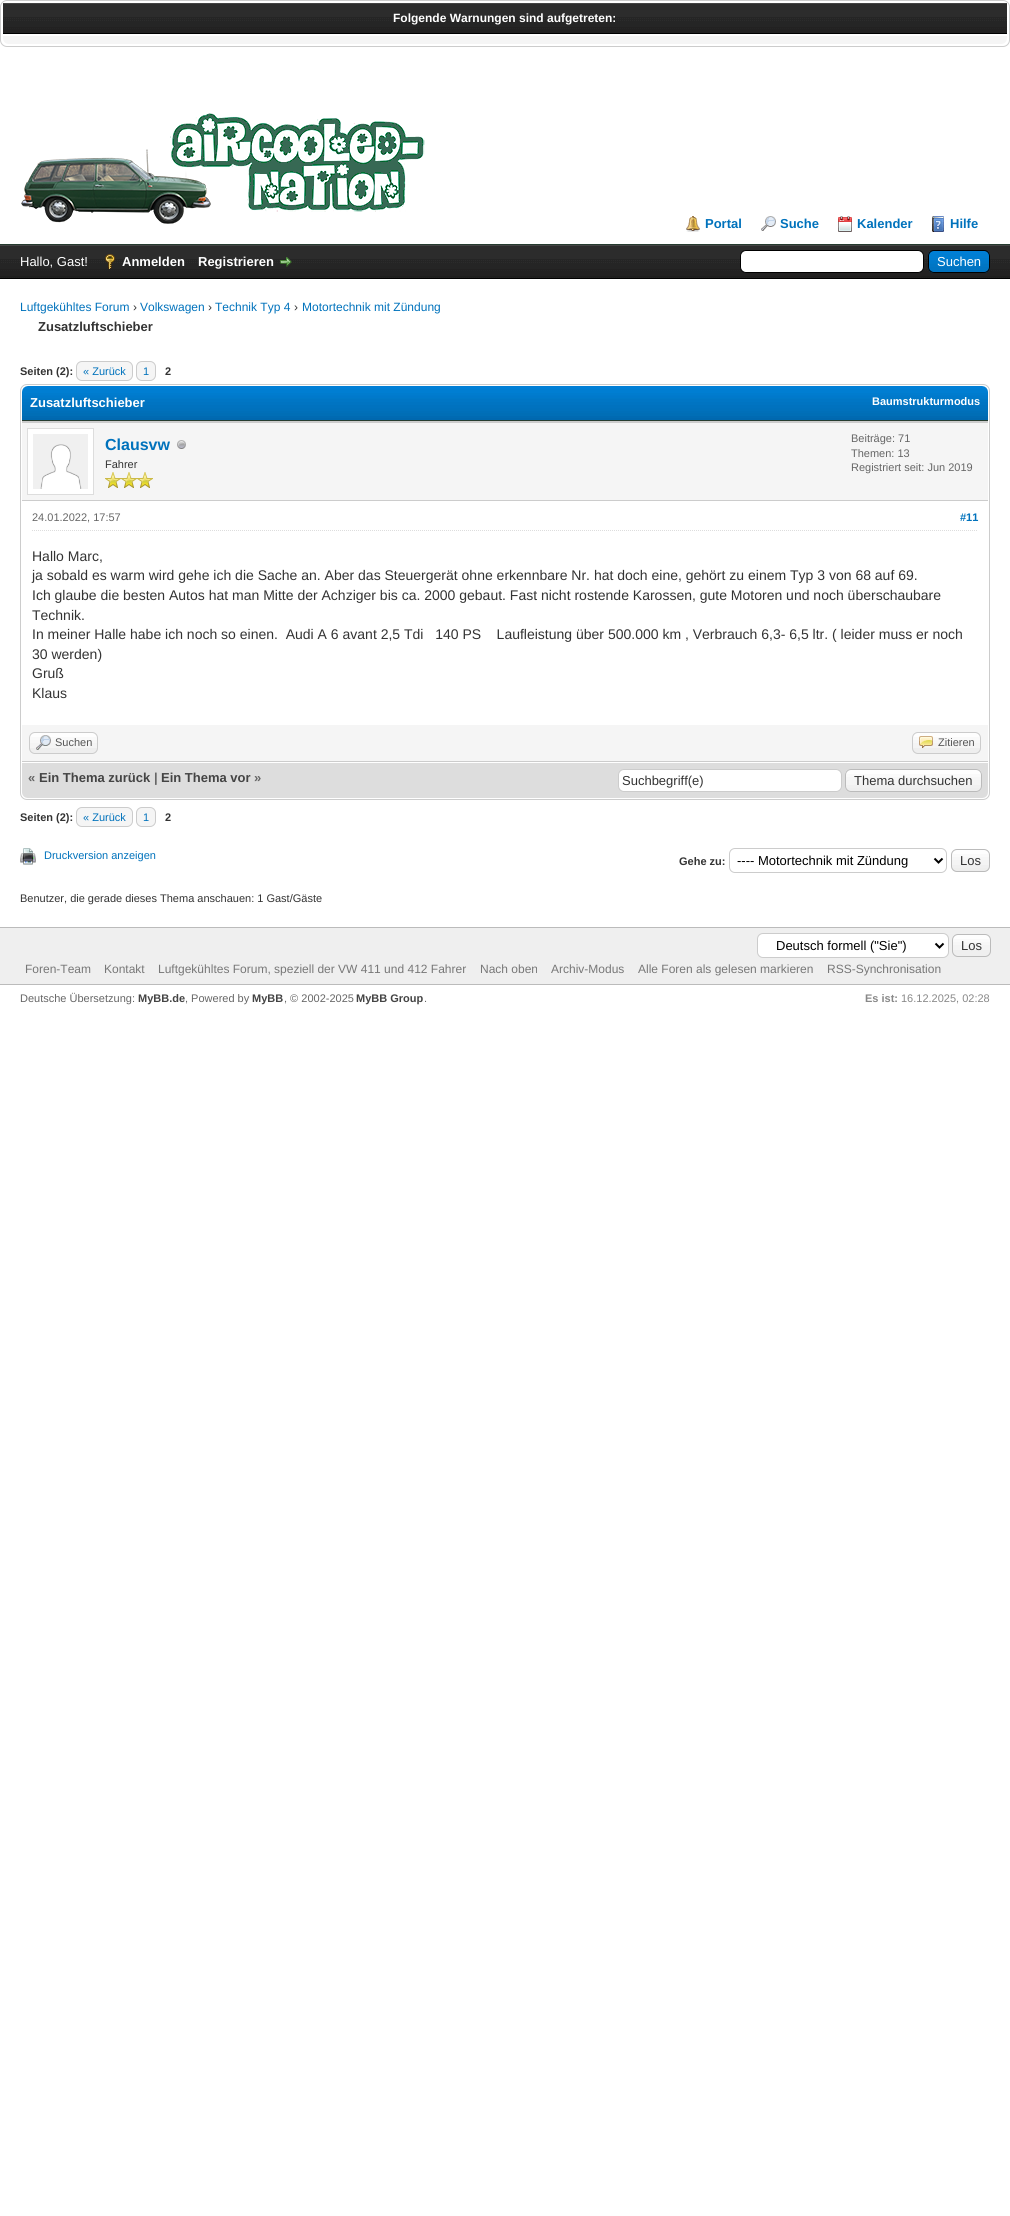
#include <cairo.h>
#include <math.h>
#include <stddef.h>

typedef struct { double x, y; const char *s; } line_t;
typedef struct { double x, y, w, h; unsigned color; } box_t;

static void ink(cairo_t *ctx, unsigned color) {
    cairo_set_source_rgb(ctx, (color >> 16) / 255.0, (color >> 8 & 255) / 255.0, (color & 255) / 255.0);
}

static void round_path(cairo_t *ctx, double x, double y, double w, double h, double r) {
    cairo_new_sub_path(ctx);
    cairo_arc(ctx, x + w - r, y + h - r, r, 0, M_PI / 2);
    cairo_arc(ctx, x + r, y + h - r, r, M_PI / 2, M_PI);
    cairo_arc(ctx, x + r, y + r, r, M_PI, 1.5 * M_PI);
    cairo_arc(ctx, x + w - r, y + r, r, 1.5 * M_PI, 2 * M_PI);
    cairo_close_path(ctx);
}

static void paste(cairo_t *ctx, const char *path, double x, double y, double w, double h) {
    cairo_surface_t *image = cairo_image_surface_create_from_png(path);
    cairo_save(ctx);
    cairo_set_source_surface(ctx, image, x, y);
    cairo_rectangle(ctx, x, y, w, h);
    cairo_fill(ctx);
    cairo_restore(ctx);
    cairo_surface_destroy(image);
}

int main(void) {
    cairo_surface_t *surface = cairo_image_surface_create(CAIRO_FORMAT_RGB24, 1010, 2216);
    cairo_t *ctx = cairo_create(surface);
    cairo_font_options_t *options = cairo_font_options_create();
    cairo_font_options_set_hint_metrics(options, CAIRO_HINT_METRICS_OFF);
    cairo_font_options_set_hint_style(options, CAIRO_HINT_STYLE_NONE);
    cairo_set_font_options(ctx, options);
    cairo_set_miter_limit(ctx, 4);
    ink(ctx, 0xFFFFFF);
    cairo_paint(ctx);
    round_path(ctx, 0.5, 0.5, 1009, 46, 6.5);
    ink(ctx, 0xCCCCCC);
    cairo_set_line_width(ctx, 1);
    cairo_stroke(ctx);
    paste(ctx, "media/1.png", 3, 4, 1004, 29);
    ink(ctx, 0x444444);
    cairo_rectangle(ctx, 3, 3, 1004, 1);
    cairo_fill(ctx);
    ink(ctx, 0x000000);
    cairo_rectangle(ctx, 3, 33, 1004, 1);
    cairo_fill(ctx);
    cairo_select_font_face(ctx, "Liberation Sans", CAIRO_FONT_SLANT_NORMAL, CAIRO_FONT_WEIGHT_BOLD);
    cairo_set_font_size(ctx, 12);
    ink(ctx, 0xFFFFFF);
    cairo_move_to(ctx, 393, 22);
    cairo_show_text(ctx, "Folgende Warnungen sind aufgetreten:");
    ink(ctx, 0xF5F5F5);
    cairo_new_path(ctx);
    cairo_move_to(ctx, 3, 35);
    cairo_line_to(ctx, 1007, 35);
    cairo_line_to(ctx, 1007, 38);
    cairo_curve_to(ctx, 1007, 41.5, 1004.5, 44, 1001, 44);
    cairo_line_to(ctx, 9, 44);
    cairo_curve_to(ctx, 5.5, 44, 3, 41.5, 3, 38);
    cairo_close_path(ctx);
    cairo_fill(ctx);
    ink(ctx, 0xFFFFFF);
    cairo_rectangle(ctx, 3, 35, 1004, 1);
    cairo_fill(ctx);
    ink(ctx, 0x263C30);
    cairo_rectangle(ctx, 0, 244, 1010, 1);
    cairo_fill(ctx);
    paste(ctx, "media/2.png", 21, 113, 404, 111);
    paste(ctx, "media/3.png", 686, 216, 14, 16);
    cairo_set_font_size(ctx, 13);
    ink(ctx, 0x0072BC);
    cairo_move_to(ctx, 705, 228);
    cairo_show_text(ctx, "Portal");
    paste(ctx, "media/4.png", 761, 216, 15, 15);
    cairo_move_to(ctx, 780, 228);
    cairo_show_text(ctx, "Suche");
    paste(ctx, "media/5.png", 838, 216, 14, 16);
    cairo_move_to(ctx, 857, 228);
    cairo_show_text(ctx, "Kalender");
    paste(ctx, "media/6.png", 932, 216, 12, 16);
    cairo_move_to(ctx, 950, 228);
    cairo_show_text(ctx, "Hilfe");
    paste(ctx, "media/7.png", 0, 246, 1010, 32);
    ink(ctx, 0x444444);
    cairo_rectangle(ctx, 0, 245, 1010, 1);
    cairo_fill(ctx);
    ink(ctx, 0x000000);
    cairo_rectangle(ctx, 0, 278, 1010, 1);
    cairo_fill(ctx);
    cairo_select_font_face(ctx, "Liberation Sans", CAIRO_FONT_SLANT_NORMAL, CAIRO_FONT_WEIGHT_NORMAL);
    ink(ctx, 0xFFFFFF);
    cairo_move_to(ctx, 20, 266);
    cairo_show_text(ctx, "Hallo, Gast!");
    paste(ctx, "media/8.png", 105, 254, 10, 15);
    cairo_select_font_face(ctx, "Liberation Sans", CAIRO_FONT_SLANT_NORMAL, CAIRO_FONT_WEIGHT_BOLD);
    cairo_move_to(ctx, 122, 266);
    cairo_show_text(ctx, "Anmelden");
    cairo_move_to(ctx, 198, 266);
    cairo_show_text(ctx, "Registrieren");
    paste(ctx, "media/9.png", 280, 257, 12, 10);
    round_path(ctx, 740.5, 250.5, 183, 22, 5.5);
    cairo_fill_preserve(ctx);
    ink(ctx, 0x000000);
    cairo_stroke(ctx);
    paste(ctx, "media/10.png", 928, 251, 62, 22);
    round_path(ctx, 928.5, 250.5, 61, 22, 5.5);
    cairo_stroke(ctx);
    cairo_select_font_face(ctx, "Liberation Sans", CAIRO_FONT_SLANT_NORMAL, CAIRO_FONT_WEIGHT_NORMAL);
    ink(ctx, 0xFFFFFF);
    cairo_move_to(ctx, 937, 266);
    cairo_show_text(ctx, "Suchen");
    cairo_set_font_size(ctx, 12);
    ink(ctx, 0x0072BC);
    cairo_move_to(ctx, 20, 311);
    cairo_show_text(ctx, "Luftgekühltes Forum");
    ink(ctx, 0x333333);
    cairo_move_to(ctx, 133, 311);
    cairo_show_text(ctx, "›");
    ink(ctx, 0x0072BC);
    cairo_move_to(ctx, 140, 311);
    cairo_show_text(ctx, "Volkswagen");
    ink(ctx, 0x333333);
    cairo_move_to(ctx, 208, 311);
    cairo_show_text(ctx, "›");
    ink(ctx, 0x0072BC);
    cairo_move_to(ctx, 215, 311);
    cairo_show_text(ctx, "Technik Typ 4");
    ink(ctx, 0x333333);
    cairo_move_to(ctx, 294, 311);
    cairo_show_text(ctx, "›");
    ink(ctx, 0x0072BC);
    cairo_move_to(ctx, 302, 311);
    cairo_show_text(ctx, "Motortechnik mit Zündung");
    cairo_select_font_face(ctx, "Liberation Sans", CAIRO_FONT_SLANT_NORMAL, CAIRO_FONT_WEIGHT_BOLD);
    cairo_set_font_size(ctx, 13);
    ink(ctx, 0x333333);
    cairo_move_to(ctx, 38, 331);
    cairo_show_text(ctx, "Zusatzluftschieber");
    cairo_set_font_size(ctx, 11);
    cairo_move_to(ctx, 20, 375);
    cairo_show_text(ctx, "Seiten (2):");
    ink(ctx, 0xF5F5F5);
    round_path(ctx, 76.5, 361.5, 56, 19, 5.5);
    cairo_fill_preserve(ctx);
    ink(ctx, 0xCCCCCC);
    cairo_stroke(ctx);
    cairo_select_font_face(ctx, "Liberation Sans", CAIRO_FONT_SLANT_NORMAL, CAIRO_FONT_WEIGHT_NORMAL);
    ink(ctx, 0x0072BC);
    cairo_move_to(ctx, 83, 375);
    cairo_show_text(ctx, "« Zurück");
    ink(ctx, 0xF5F5F5);
    round_path(ctx, 136.5, 361.5, 19, 19, 5.5);
    cairo_fill_preserve(ctx);
    ink(ctx, 0xCCCCCC);
    cairo_stroke(ctx);
    ink(ctx, 0x0072BC);
    cairo_move_to(ctx, 143, 375);
    cairo_show_text(ctx, "1");
    cairo_select_font_face(ctx, "Liberation Sans", CAIRO_FONT_SLANT_NORMAL, CAIRO_FONT_WEIGHT_BOLD);
    ink(ctx, 0x333333);
    cairo_move_to(ctx, 165, 375);
    cairo_show_text(ctx, "2");
    round_path(ctx, 20.5, 384.5, 969, 415, 6.5);
    ink(ctx, 0xCCCCCC);
    cairo_stroke(ctx);
    paste(ctx, "media/11.png", 22, 386, 966, 34);
    ink(ctx, 0x263C30);
    cairo_rectangle(ctx, 22, 420, 966, 1);
    cairo_fill(ctx);
    cairo_set_font_size(ctx, 13);
    ink(ctx, 0xFFFFFF);
    cairo_move_to(ctx, 30, 407);
    cairo_show_text(ctx, "Zusatzluftschieber");
    cairo_set_font_size(ctx, 11);
    cairo_move_to(ctx, 872, 405);
    cairo_show_text(ctx, "Baumstrukturmodus");
    {
        static const box_t items[] = {
            {22, 423, 966, 77, 0xF5F5F5},
            {22, 421, 966, 2, 0xCCCCCC},
            {22, 500, 966, 1, 0xCCCCCC},
        };
        for (size_t i = 0; i < sizeof items / sizeof *items; i++) {
            ink(ctx, items[i].color);
            cairo_rectangle(ctx, items[i].x, items[i].y, items[i].w, items[i].h);
            cairo_fill(ctx);
        }
    }
    ink(ctx, 0xFFFFFF);
    cairo_rectangle(ctx, 27.5, 428.5, 66, 66);
    cairo_fill_preserve(ctx);
    ink(ctx, 0xDDDDDD);
    cairo_stroke(ctx);
    paste(ctx, "media/12.png", 33, 434, 55, 55);
    cairo_set_font_size(ctx, 16);
    ink(ctx, 0x0072BC);
    cairo_move_to(ctx, 105, 450);
    cairo_show_text(ctx, "Clausvw");
    paste(ctx, "media/13.png", 177, 440, 9, 9);
    cairo_select_font_face(ctx, "Liberation Sans", CAIRO_FONT_SLANT_NORMAL, CAIRO_FONT_WEIGHT_NORMAL);
    cairo_set_font_size(ctx, 11);
    ink(ctx, 0x333333);
    cairo_move_to(ctx, 105, 468);
    cairo_show_text(ctx, "Fahrer");
    paste(ctx, "media/14.png", 105, 472, 16, 16);
    paste(ctx, "media/14.png", 121, 472, 16, 16);
    paste(ctx, "media/14.png", 137, 472, 16, 16);
    ink(ctx, 0x666666);
    {
        static const line_t items[] = {
            {851, 442, "Beiträge: 71"},
            {851, 457, "Themen: 13"},
            {851, 471, "Registriert seit: Jun 2019"},
        };
        for (size_t i = 0; i < sizeof items / sizeof *items; i++) {
            cairo_move_to(ctx, items[i].x, items[i].y);
            cairo_show_text(ctx, items[i].s);
        }
    }
    cairo_new_path(ctx);
    cairo_move_to(ctx, 32, 530.5);
    cairo_line_to(ctx, 978, 530.5);
    ink(ctx, 0xDDDDDD);
    cairo_set_dash(ctx, (double[]){1, 1}, 2, 0);
    cairo_stroke(ctx);
    ink(ctx, 0x666666);
    cairo_move_to(ctx, 32, 521);
    cairo_show_text(ctx, "24.01.2022, 17:57");
    cairo_select_font_face(ctx, "Liberation Sans", CAIRO_FONT_SLANT_NORMAL, CAIRO_FONT_WEIGHT_BOLD);
    ink(ctx, 0x0072BC);
    cairo_move_to(ctx, 960, 521);
    cairo_show_text(ctx, "#11");
    cairo_select_font_face(ctx, "Liberation Sans", CAIRO_FONT_SLANT_NORMAL, CAIRO_FONT_WEIGHT_NORMAL);
    cairo_set_font_size(ctx, 14);
    ink(ctx, 0x333333);
    {
        static const line_t items[] = {
            {32, 561, "Hallo Marc,"},
            {32, 580, "ja sobald es warm wird gehe ich die Sache an. Aber das Steuergerät ohne erkennbare Nr. hat doch eine, gehört zu einem Typ 3 von 68 auf 69."},
            {32, 600, "Ich glaube die besten Autos hat man Mitte der Achziger bis ca. 2000 gebaut. Fast nicht rostende Karossen, gute Motoren und noch überschaubare"},
            {32, 620, "Technik."},
            {32, 639, "In meiner Halle habe ich noch so einen.  Audi A 6 avant 2,5 Tdi   140 PS    Laufleistung über 500.000 km , Verbrauch 6,3- 6,5 ltr. ( leider muss er noch"},
            {32, 659, "30 werden)"},
            {32, 678, "Gruß"},
            {32, 698, "Klaus"},
        };
        for (size_t i = 0; i < sizeof items / sizeof *items; i++) {
            cairo_move_to(ctx, items[i].x, items[i].y);
            cairo_show_text(ctx, items[i].s);
        }
    }
    ink(ctx, 0xF5F5F5);
    cairo_rectangle(ctx, 22, 725, 966, 36);
    cairo_fill(ctx);
    ink(ctx, 0xCCCCCC);
    cairo_rectangle(ctx, 22, 761, 966, 1);
    cairo_fill(ctx);
    ink(ctx, 0xEEEEEE);
    round_path(ctx, 29, 732, 69, 22, 6);
    cairo_fill(ctx);
    paste(ctx, "media/15.png", 29, 733, 69, 15);
    round_path(ctx, 29.5, 732.5, 68, 21, 5.5);
    ink(ctx, 0xCCCCCC);
    cairo_set_dash(ctx, NULL, 0, 0);
    cairo_stroke(ctx);
    paste(ctx, "media/16.png", 36, 735, 15, 15);
    cairo_set_font_size(ctx, 11);
    ink(ctx, 0x555555);
    cairo_move_to(ctx, 55, 746);
    cairo_show_text(ctx, "Suchen");
    ink(ctx, 0xEEEEEE);
    round_path(ctx, 912, 732, 69, 22, 6);
    cairo_fill(ctx);
    paste(ctx, "media/15.png", 912, 733, 69, 15);
    round_path(ctx, 912.5, 732.5, 68, 21, 5.5);
    ink(ctx, 0xCCCCCC);
    cairo_stroke(ctx);
    paste(ctx, "media/17.png", 919, 736, 14, 12);
    ink(ctx, 0x555555);
    cairo_move_to(ctx, 938, 746);
    cairo_show_text(ctx, "Zitieren");
    ink(ctx, 0xDDDDDD);
    cairo_new_path(ctx);
    cairo_move_to(ctx, 22, 762);
    cairo_line_to(ctx, 988, 762);
    cairo_line_to(ctx, 988, 792);
    cairo_curve_to(ctx, 988, 795.5, 985.5, 798, 982, 798);
    cairo_line_to(ctx, 28, 798);
    cairo_curve_to(ctx, 24.5, 798, 22, 795.5, 22, 792);
    cairo_close_path(ctx);
    cairo_fill(ctx);
    ink(ctx, 0xFFFFFF);
    cairo_rectangle(ctx, 22, 762, 966, 1);
    cairo_fill(ctx);
    cairo_select_font_face(ctx, "Liberation Sans", CAIRO_FONT_SLANT_NORMAL, CAIRO_FONT_WEIGHT_BOLD);
    cairo_set_font_size(ctx, 13);
    ink(ctx, 0x666666);
    cairo_move_to(ctx, 28, 782);
    cairo_show_text(ctx, "«");
    ink(ctx, 0x444444);
    cairo_move_to(ctx, 39, 782);
    cairo_show_text(ctx, "Ein Thema zurück");
    ink(ctx, 0x666666);
    cairo_move_to(ctx, 154, 782);
    cairo_show_text(ctx, "|");
    ink(ctx, 0x444444);
    cairo_move_to(ctx, 161, 782);
    cairo_show_text(ctx, "Ein Thema vor");
    ink(ctx, 0x666666);
    cairo_move_to(ctx, 254, 782);
    cairo_show_text(ctx, "»");
    ink(ctx, 0xFFFFFF);
    round_path(ctx, 618.5, 769.5, 223, 22, 5.5);
    cairo_fill_preserve(ctx);
    ink(ctx, 0xCCCCCC);
    cairo_stroke(ctx);
    cairo_select_font_face(ctx, "Liberation Sans", CAIRO_FONT_SLANT_NORMAL, CAIRO_FONT_WEIGHT_NORMAL);
    ink(ctx, 0x333333);
    cairo_move_to(ctx, 622, 785);
    cairo_show_text(ctx, "Suchbegriff(e)");
    ink(ctx, 0xEEEEEE);
    round_path(ctx, 845, 769, 137, 23, 6);
    cairo_fill(ctx);
    paste(ctx, "media/18.png", 845, 770, 137, 18);
    round_path(ctx, 845.5, 769.5, 136, 22, 5.5);
    ink(ctx, 0xBBBBBB);
    cairo_stroke(ctx);
    ink(ctx, 0x333333);
    cairo_move_to(ctx, 854, 785);
    cairo_show_text(ctx, "Thema durchsuchen");
    cairo_select_font_face(ctx, "Liberation Sans", CAIRO_FONT_SLANT_NORMAL, CAIRO_FONT_WEIGHT_BOLD);
    cairo_set_font_size(ctx, 11);
    cairo_move_to(ctx, 20, 821);
    cairo_show_text(ctx, "Seiten (2):");
    ink(ctx, 0xF5F5F5);
    round_path(ctx, 76.5, 807.5, 56, 19, 5.5);
    cairo_fill_preserve(ctx);
    ink(ctx, 0xCCCCCC);
    cairo_stroke(ctx);
    cairo_select_font_face(ctx, "Liberation Sans", CAIRO_FONT_SLANT_NORMAL, CAIRO_FONT_WEIGHT_NORMAL);
    ink(ctx, 0x0072BC);
    cairo_move_to(ctx, 83, 821);
    cairo_show_text(ctx, "« Zurück");
    ink(ctx, 0xF5F5F5);
    round_path(ctx, 136.5, 807.5, 19, 19, 5.5);
    cairo_fill_preserve(ctx);
    ink(ctx, 0xCCCCCC);
    cairo_stroke(ctx);
    ink(ctx, 0x0072BC);
    cairo_move_to(ctx, 143, 821);
    cairo_show_text(ctx, "1");
    cairo_select_font_face(ctx, "Liberation Sans", CAIRO_FONT_SLANT_NORMAL, CAIRO_FONT_WEIGHT_BOLD);
    ink(ctx, 0x333333);
    cairo_move_to(ctx, 165, 821);
    cairo_show_text(ctx, "2");
    paste(ctx, "media/19.png", 20, 848, 16, 17);
    cairo_select_font_face(ctx, "Liberation Sans", CAIRO_FONT_SLANT_NORMAL, CAIRO_FONT_WEIGHT_NORMAL);
    ink(ctx, 0x0072BC);
    cairo_move_to(ctx, 44, 859);
    cairo_show_text(ctx, "Druckversion anzeigen");
    cairo_select_font_face(ctx, "Liberation Sans", CAIRO_FONT_SLANT_NORMAL, CAIRO_FONT_WEIGHT_BOLD);
    ink(ctx, 0x333333);
    cairo_move_to(ctx, 679, 865);
    cairo_show_text(ctx, "Gehe zu:");
    round_path(ctx, 729.5, 848.5, 217, 24, 5.5);
    ink(ctx, 0xCCCCCC);
    cairo_stroke(ctx);
    cairo_new_path(ctx);
    cairo_move_to(ctx, 934.5, 858.5);
    cairo_line_to(ctx, 938.5, 862.5);
    cairo_line_to(ctx, 942.5, 858.5);
    ink(ctx, 0x000000);
    cairo_set_line_width(ctx, 2);
    cairo_stroke(ctx);
    cairo_select_font_face(ctx, "Liberation Sans", CAIRO_FONT_SLANT_NORMAL, CAIRO_FONT_WEIGHT_NORMAL);
    cairo_set_font_size(ctx, 13);
    cairo_move_to(ctx, 737, 865);
    cairo_show_text(ctx, "---- Motortechnik mit Zündung");
    paste(ctx, "media/20.png", 951, 850, 39, 22);
    round_path(ctx, 951.5, 849.5, 38, 22, 5.5);
    ink(ctx, 0xBBBBBB);
    cairo_set_line_width(ctx, 1);
    cairo_stroke(ctx);
    ink(ctx, 0x333333);
    cairo_move_to(ctx, 960, 865);
    cairo_show_text(ctx, "Los");
    cairo_set_font_size(ctx, 11);
    cairo_move_to(ctx, 20, 902);
    cairo_show_text(ctx, "Benutzer, die gerade dieses Thema anschauen: 1 Gast/Gäste");
    {
        static const box_t items[] = {
            {0, 928, 1010, 56, 0xEFEFEF},
            {0, 927, 1010, 1, 0xBBBBBB},
            {0, 984, 1010, 1, 0xBBBBBB},
        };
        for (size_t i = 0; i < sizeof items / sizeof *items; i++) {
            ink(ctx, items[i].color);
            cairo_rectangle(ctx, items[i].x, items[i].y, items[i].w, items[i].h);
            cairo_fill(ctx);
        }
    }
    ink(ctx, 0xFFFFFF);
    round_path(ctx, 757.5, 933.5, 191, 24, 5.5);
    cairo_fill_preserve(ctx);
    ink(ctx, 0xCCCCCC);
    cairo_stroke(ctx);
    cairo_new_path(ctx);
    cairo_move_to(ctx, 935.5, 943.5);
    cairo_line_to(ctx, 939.5, 947.5);
    cairo_line_to(ctx, 943.5, 943.5);
    ink(ctx, 0x000000);
    cairo_set_line_width(ctx, 2);
    cairo_stroke(ctx);
    cairo_set_font_size(ctx, 13);
    cairo_move_to(ctx, 776, 950);
    cairo_show_text(ctx, "Deutsch formell (\"Sie\")");
    paste(ctx, "media/21.png", 952, 935, 39, 15);
    round_path(ctx, 952.5, 934.5, 38, 22, 5.5);
    ink(ctx, 0xBBBBBB);
    cairo_set_line_width(ctx, 1);
    cairo_stroke(ctx);
    ink(ctx, 0x333333);
    cairo_move_to(ctx, 961, 950);
    cairo_show_text(ctx, "Los");
    cairo_set_font_size(ctx, 12);
    ink(ctx, 0x777777);
    {
        static const line_t items[] = {
            {25, 973, "Foren-Team"},
            {104, 973, "Kontakt"},
            {158, 973, "Luftgekühltes Forum, speziell der VW 411 und 412 Fahrer"},
            {480, 973, "Nach oben"},
            {551, 973, "Archiv-Modus"},
            {638, 973, "Alle Foren als gelesen markieren"},
            {827, 973, "RSS-Synchronisation"},
        };
        for (size_t i = 0; i < sizeof items / sizeof *items; i++) {
            cairo_move_to(ctx, items[i].x, items[i].y);
            cairo_show_text(ctx, items[i].s);
        }
    }
    cairo_set_font_size(ctx, 11);
    ink(ctx, 0x666666);
    cairo_move_to(ctx, 20, 1002);
    cairo_show_text(ctx, "Deutsche Übersetzung:");
    cairo_select_font_face(ctx, "Liberation Sans", CAIRO_FONT_SLANT_NORMAL, CAIRO_FONT_WEIGHT_BOLD);
    ink(ctx, 0x444444);
    cairo_move_to(ctx, 138, 1002);
    cairo_show_text(ctx, "MyBB.de");
    cairo_select_font_face(ctx, "Liberation Sans", CAIRO_FONT_SLANT_NORMAL, CAIRO_FONT_WEIGHT_NORMAL);
    ink(ctx, 0x666666);
    cairo_move_to(ctx, 185, 1002);
    cairo_show_text(ctx, ", Powered by");
    cairo_select_font_face(ctx, "Liberation Sans", CAIRO_FONT_SLANT_NORMAL, CAIRO_FONT_WEIGHT_BOLD);
    ink(ctx, 0x444444);
    cairo_move_to(ctx, 252, 1002);
    cairo_show_text(ctx, "MyBB");
    cairo_select_font_face(ctx, "Liberation Sans", CAIRO_FONT_SLANT_NORMAL, CAIRO_FONT_WEIGHT_NORMAL);
    ink(ctx, 0x666666);
    cairo_move_to(ctx, 284, 1002);
    cairo_show_text(ctx, ", © 2002-2025");
    cairo_select_font_face(ctx, "Liberation Sans", CAIRO_FONT_SLANT_NORMAL, CAIRO_FONT_WEIGHT_BOLD);
    ink(ctx, 0x444444);
    cairo_move_to(ctx, 356, 1002);
    cairo_show_text(ctx, "MyBB Group");
    cairo_select_font_face(ctx, "Liberation Sans", CAIRO_FONT_SLANT_NORMAL, CAIRO_FONT_WEIGHT_NORMAL);
    ink(ctx, 0x666666);
    cairo_move_to(ctx, 424, 1002);
    cairo_show_text(ctx, ".");
    cairo_select_font_face(ctx, "Liberation Sans", CAIRO_FONT_SLANT_NORMAL, CAIRO_FONT_WEIGHT_BOLD);
    ink(ctx, 0x888888);
    cairo_move_to(ctx, 865, 1002);
    cairo_show_text(ctx, "Es ist:");
    cairo_select_font_face(ctx, "Liberation Sans", CAIRO_FONT_SLANT_NORMAL, CAIRO_FONT_WEIGHT_NORMAL);
    cairo_move_to(ctx, 901, 1002);
    cairo_show_text(ctx, "16.12.2025, 02:28");
    cairo_surface_write_to_png(surface, "image.png");
    cairo_font_options_destroy(options);
    cairo_destroy(ctx);
    cairo_surface_destroy(surface);
    return 0;
}
